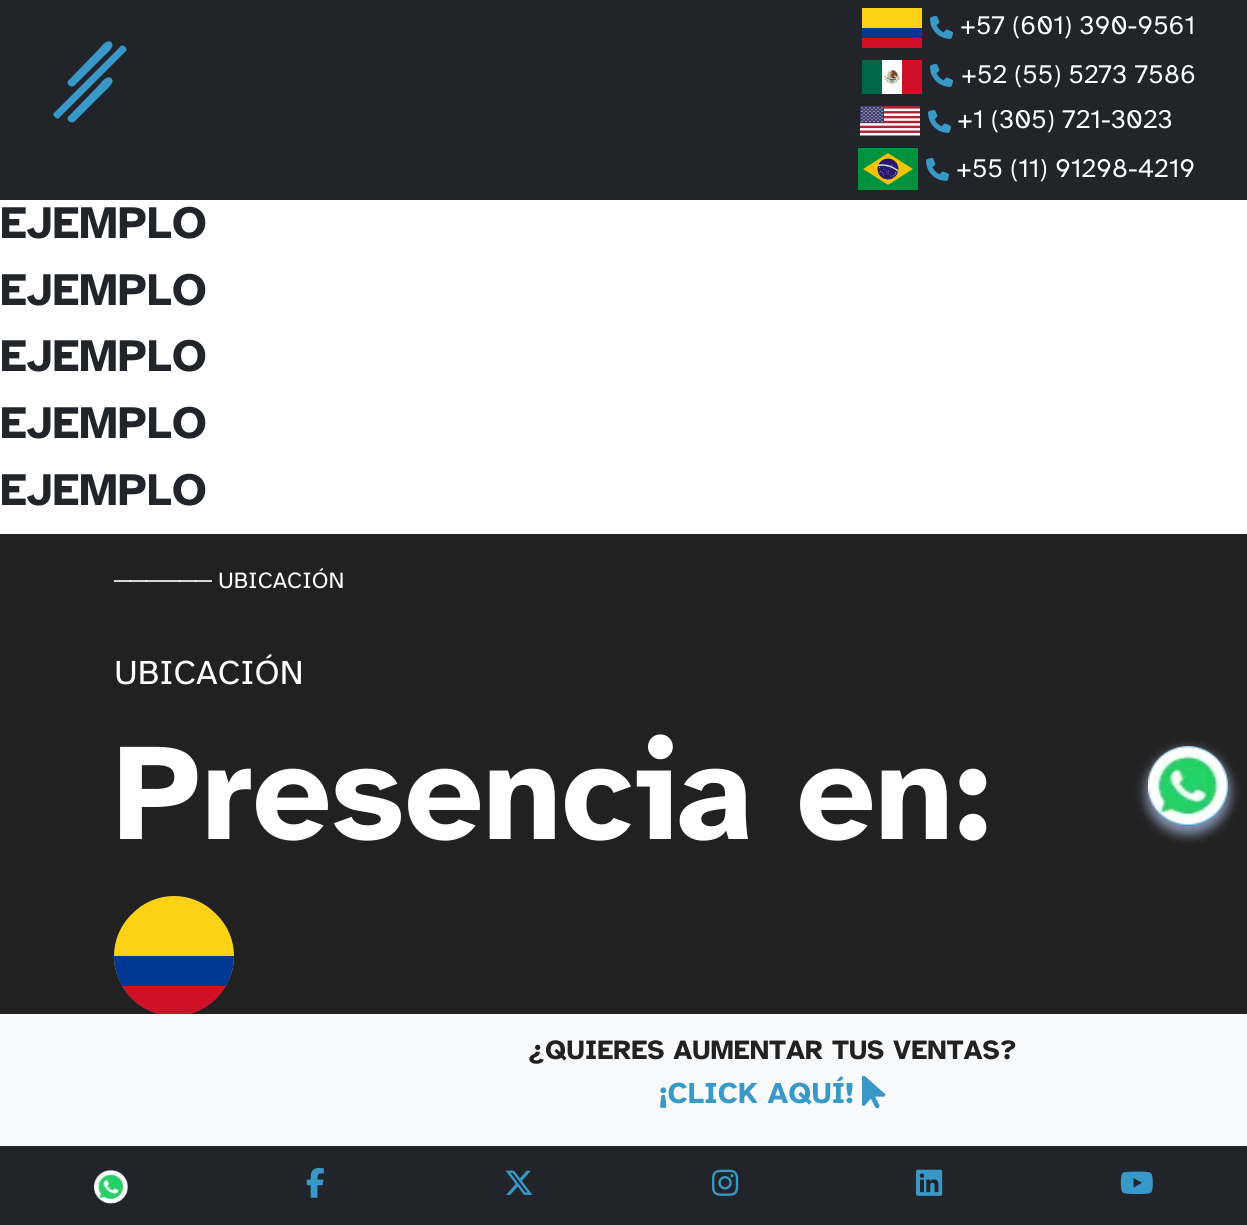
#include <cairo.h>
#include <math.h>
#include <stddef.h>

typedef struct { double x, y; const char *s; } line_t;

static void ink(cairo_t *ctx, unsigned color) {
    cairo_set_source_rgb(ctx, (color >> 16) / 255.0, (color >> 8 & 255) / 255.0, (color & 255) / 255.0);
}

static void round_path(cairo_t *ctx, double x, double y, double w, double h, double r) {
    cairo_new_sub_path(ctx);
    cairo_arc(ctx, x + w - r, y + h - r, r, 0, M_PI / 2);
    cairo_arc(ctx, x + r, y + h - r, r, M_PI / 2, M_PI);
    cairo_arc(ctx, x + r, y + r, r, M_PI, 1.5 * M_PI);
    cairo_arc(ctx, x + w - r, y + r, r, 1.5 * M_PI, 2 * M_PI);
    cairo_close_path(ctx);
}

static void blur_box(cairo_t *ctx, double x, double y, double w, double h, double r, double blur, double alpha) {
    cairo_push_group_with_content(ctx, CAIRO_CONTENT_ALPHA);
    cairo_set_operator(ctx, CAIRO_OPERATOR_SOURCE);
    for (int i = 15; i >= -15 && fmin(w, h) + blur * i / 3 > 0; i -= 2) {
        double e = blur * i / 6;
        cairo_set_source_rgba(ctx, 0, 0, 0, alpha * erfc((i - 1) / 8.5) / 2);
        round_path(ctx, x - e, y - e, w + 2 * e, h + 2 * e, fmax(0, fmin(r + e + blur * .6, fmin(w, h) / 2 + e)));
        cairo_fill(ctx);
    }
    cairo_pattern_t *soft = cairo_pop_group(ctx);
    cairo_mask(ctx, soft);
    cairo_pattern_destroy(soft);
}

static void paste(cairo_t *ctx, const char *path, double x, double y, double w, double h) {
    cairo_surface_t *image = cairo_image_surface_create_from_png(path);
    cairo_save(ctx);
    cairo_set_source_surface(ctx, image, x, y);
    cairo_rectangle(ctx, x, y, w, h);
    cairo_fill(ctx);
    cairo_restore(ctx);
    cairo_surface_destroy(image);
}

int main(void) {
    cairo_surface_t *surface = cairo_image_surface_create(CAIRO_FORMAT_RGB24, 1247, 1225);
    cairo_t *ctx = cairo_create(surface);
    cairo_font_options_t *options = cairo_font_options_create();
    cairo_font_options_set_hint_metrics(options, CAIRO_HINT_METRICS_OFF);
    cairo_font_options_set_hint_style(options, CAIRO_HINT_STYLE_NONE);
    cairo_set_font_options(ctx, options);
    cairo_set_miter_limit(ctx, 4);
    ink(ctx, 0xFFFFFF);
    cairo_paint(ctx);
    ink(ctx, 0x212529);
    cairo_rectangle(ctx, 0, 0, 1247, 200);
    cairo_fill(ctx);
    ink(ctx, 0xFCD116);
    cairo_rectangle(ctx, 862, 8, 60, 20);
    cairo_fill(ctx);
    paste(ctx, "media/1.png", 930, 15, 23, 24);
    cairo_select_font_face(ctx, "Atkinson Hyperlegible", CAIRO_FONT_SLANT_NORMAL, CAIRO_FONT_WEIGHT_NORMAL);
    cairo_set_font_size(ctx, 26.5);
    ink(ctx, 0xFFFFFF);
    cairo_move_to(ctx, 960, 34);
    cairo_show_text(ctx, "+57 (601) 390-9561");
    ink(ctx, 0x003893);
    cairo_rectangle(ctx, 862, 28, 60, 10);
    cairo_fill(ctx);
    ink(ctx, 0xCE1126);
    cairo_rectangle(ctx, 862, 38, 60, 10);
    cairo_fill(ctx);
    paste(ctx, "media/2.png", 862, 60, 60, 34);
    paste(ctx, "media/1.png", 930, 63, 23, 24);
    ink(ctx, 0xFFFFFF);
    cairo_move_to(ctx, 961, 83);
    cairo_show_text(ctx, "+52 (55) 5273 7586");
    paste(ctx, "media/3.png", 860, 106, 60, 30);
    paste(ctx, "media/1.png", 928, 109, 23, 24);
    cairo_move_to(ctx, 957, 128);
    cairo_show_text(ctx, "+1 (305) 721-3023");
    paste(ctx, "media/4.png", 858, 148, 60, 42);
    paste(ctx, "media/1.png", 926, 157, 23, 24);
    cairo_move_to(ctx, 956, 177);
    cairo_show_text(ctx, "+55 (11) 91298-4219");
    ink(ctx, 0x3898C7);
    cairo_new_path(ctx);
    cairo_move_to(ctx, 69, 80);
    cairo_line_to(ctx, 99, 49);
    cairo_curve_to(ctx, 101, 47, 106, 39, 111, 42);
    cairo_curve_to(ctx, 116, 46, 107, 53, 105, 55);
    cairo_line_to(ctx, 74, 86);
    cairo_curve_to(ctx, 70, 88, 65, 83, 69, 80);
    cairo_close_path(ctx);
    cairo_fill(ctx);
    cairo_new_path(ctx);
    cairo_move_to(ctx, 55, 112);
    cairo_line_to(ctx, 120, 47);
    cairo_curve_to(ctx, 121, 45, 124, 45, 125, 47);
    cairo_curve_to(ctx, 127, 48, 127, 51, 125, 52);
    cairo_line_to(ctx, 60, 117);
    cairo_curve_to(ctx, 59, 119, 56, 119, 55, 117);
    cairo_curve_to(ctx, 53, 116, 53, 113, 55, 112);
    cairo_close_path(ctx);
    cairo_fill(ctx);
    cairo_new_path(ctx);
    cairo_move_to(ctx, 69, 116);
    cairo_line_to(ctx, 99, 85);
    cairo_curve_to(ctx, 101, 83, 106, 75, 111, 78);
    cairo_curve_to(ctx, 116, 82, 107, 89, 105, 91);
    cairo_line_to(ctx, 74, 122);
    cairo_curve_to(ctx, 70, 124, 65, 119, 69, 116);
    cairo_close_path(ctx);
    cairo_fill(ctx);
    cairo_select_font_face(ctx, "Atkinson Hyperlegible", CAIRO_FONT_SLANT_NORMAL, CAIRO_FONT_WEIGHT_BOLD);
    cairo_set_font_size(ctx, 46);
    ink(ctx, 0x212529);
    {
        static const line_t items[] = {
            {0, 238, "EJEMPLO"},
            {0, 305, "EJEMPLO"},
            {0, 371, "EJEMPLO"},
            {0, 438, "EJEMPLO"},
            {0, 505, "EJEMPLO"},
        };
        for (size_t i = 0; i < sizeof items / sizeof *items; i++) {
            cairo_move_to(ctx, items[i].x, items[i].y);
            cairo_show_text(ctx, items[i].s);
        }
    }
    ink(ctx, 0x212121);
    cairo_rectangle(ctx, 0, 534, 1247, 480);
    cairo_fill(ctx);
    cairo_select_font_face(ctx, "Liberation Serif", CAIRO_FONT_SLANT_NORMAL, CAIRO_FONT_WEIGHT_NORMAL);
    cairo_set_font_size(ctx, 23);
    ink(ctx, 0xFFFFFF);
    cairo_move_to(ctx, 114, 588);
    cairo_show_text(ctx, "──────");
    cairo_select_font_face(ctx, "Atkinson Hyperlegible", CAIRO_FONT_SLANT_NORMAL, CAIRO_FONT_WEIGHT_NORMAL);
    cairo_move_to(ctx, 218, 588);
    cairo_show_text(ctx, "UBICACIÓN");
    cairo_set_font_size(ctx, 34.5);
    cairo_move_to(ctx, 114, 684);
    cairo_show_text(ctx, "UBICACIÓN");
    cairo_select_font_face(ctx, "Atkinson Hyperlegible", CAIRO_FONT_SLANT_NORMAL, CAIRO_FONT_WEIGHT_BOLD);
    cairo_set_font_size(ctx, 138);
    cairo_move_to(ctx, 114, 839);
    cairo_show_text(ctx, "Presencia en:");
    ink(ctx, 0xFCD116);
    cairo_new_path(ctx);
    cairo_move_to(ctx, 132, 914);
    cairo_curve_to(ctx, 155, 890, 193, 890, 216, 914);
    cairo_curve_to(ctx, 240, 937, 240, 975, 216, 998);
    cairo_curve_to(ctx, 193, 1022, 155, 1022, 132, 998);
    cairo_curve_to(ctx, 108, 975, 108, 937, 132, 914);
    cairo_close_path(ctx);
    cairo_fill(ctx);
    ink(ctx, 0x003893);
    cairo_new_path(ctx);
    cairo_move_to(ctx, 234, 956);
    cairo_curve_to(ctx, 234, 989, 207, 1016, 174, 1016);
    cairo_curve_to(ctx, 141, 1016, 114, 989, 114, 956);
    cairo_close_path(ctx);
    cairo_fill(ctx);
    ink(ctx, 0xCE1126);
    cairo_new_path(ctx);
    cairo_move_to(ctx, 226, 986);
    cairo_curve_to(ctx, 203, 1026, 145, 1026, 122, 986);
    cairo_close_path(ctx);
    cairo_fill(ctx);
    ink(ctx, 0xFFFFFF);
    blur_box(ctx, 1148, 752, 80, 80, 40, 6, 0.78);
    ink(ctx, 0x153A98);
    blur_box(ctx, 1148, 752, 80, 80, 40, 6, 0.4);
    ink(ctx, 0x3898C7);
    cairo_arc(ctx, 1188, 786, 40, 0, 2 * M_PI);
    cairo_fill(ctx);
    paste(ctx, "media/5.png", 1148, 746, 80, 80);
    ink(ctx, 0x212529);
    cairo_rectangle(ctx, 0, 1146, 1247, 79);
    cairo_fill(ctx);
    ink(ctx, 0xF8F9FA);
    cairo_rectangle(ctx, 0, 1014, 1247, 132);
    cairo_fill(ctx);
    cairo_set_font_size(ctx, 27.6);
    ink(ctx, 0x212121);
    cairo_move_to(ctx, 528, 1059);
    cairo_show_text(ctx, "¿QUIERES AUMENTAR TUS VENTAS?");
    cairo_set_font_size(ctx, 30);
    ink(ctx, 0x3898C7);
    cairo_move_to(ctx, 659, 1103);
    cairo_show_text(ctx, "¡CLICK AQUÍ!");
    paste(ctx, "media/6.png", 862, 1075, 24, 34);
    paste(ctx, "media/7.png", 94, 1170, 34, 34);
    paste(ctx, "media/8.png", 306, 1167, 18, 31);
    paste(ctx, "media/9.png", 505, 1170, 28, 25);
    paste(ctx, "media/10.png", 712, 1169, 27, 27);
    paste(ctx, "media/11.png", 916, 1169, 27, 27);
    paste(ctx, "media/12.png", 1120, 1171, 33, 23);
    cairo_surface_write_to_png(surface, "image.png");
    cairo_font_options_destroy(options);
    cairo_destroy(ctx);
    cairo_surface_destroy(surface);
    return 0;
}
